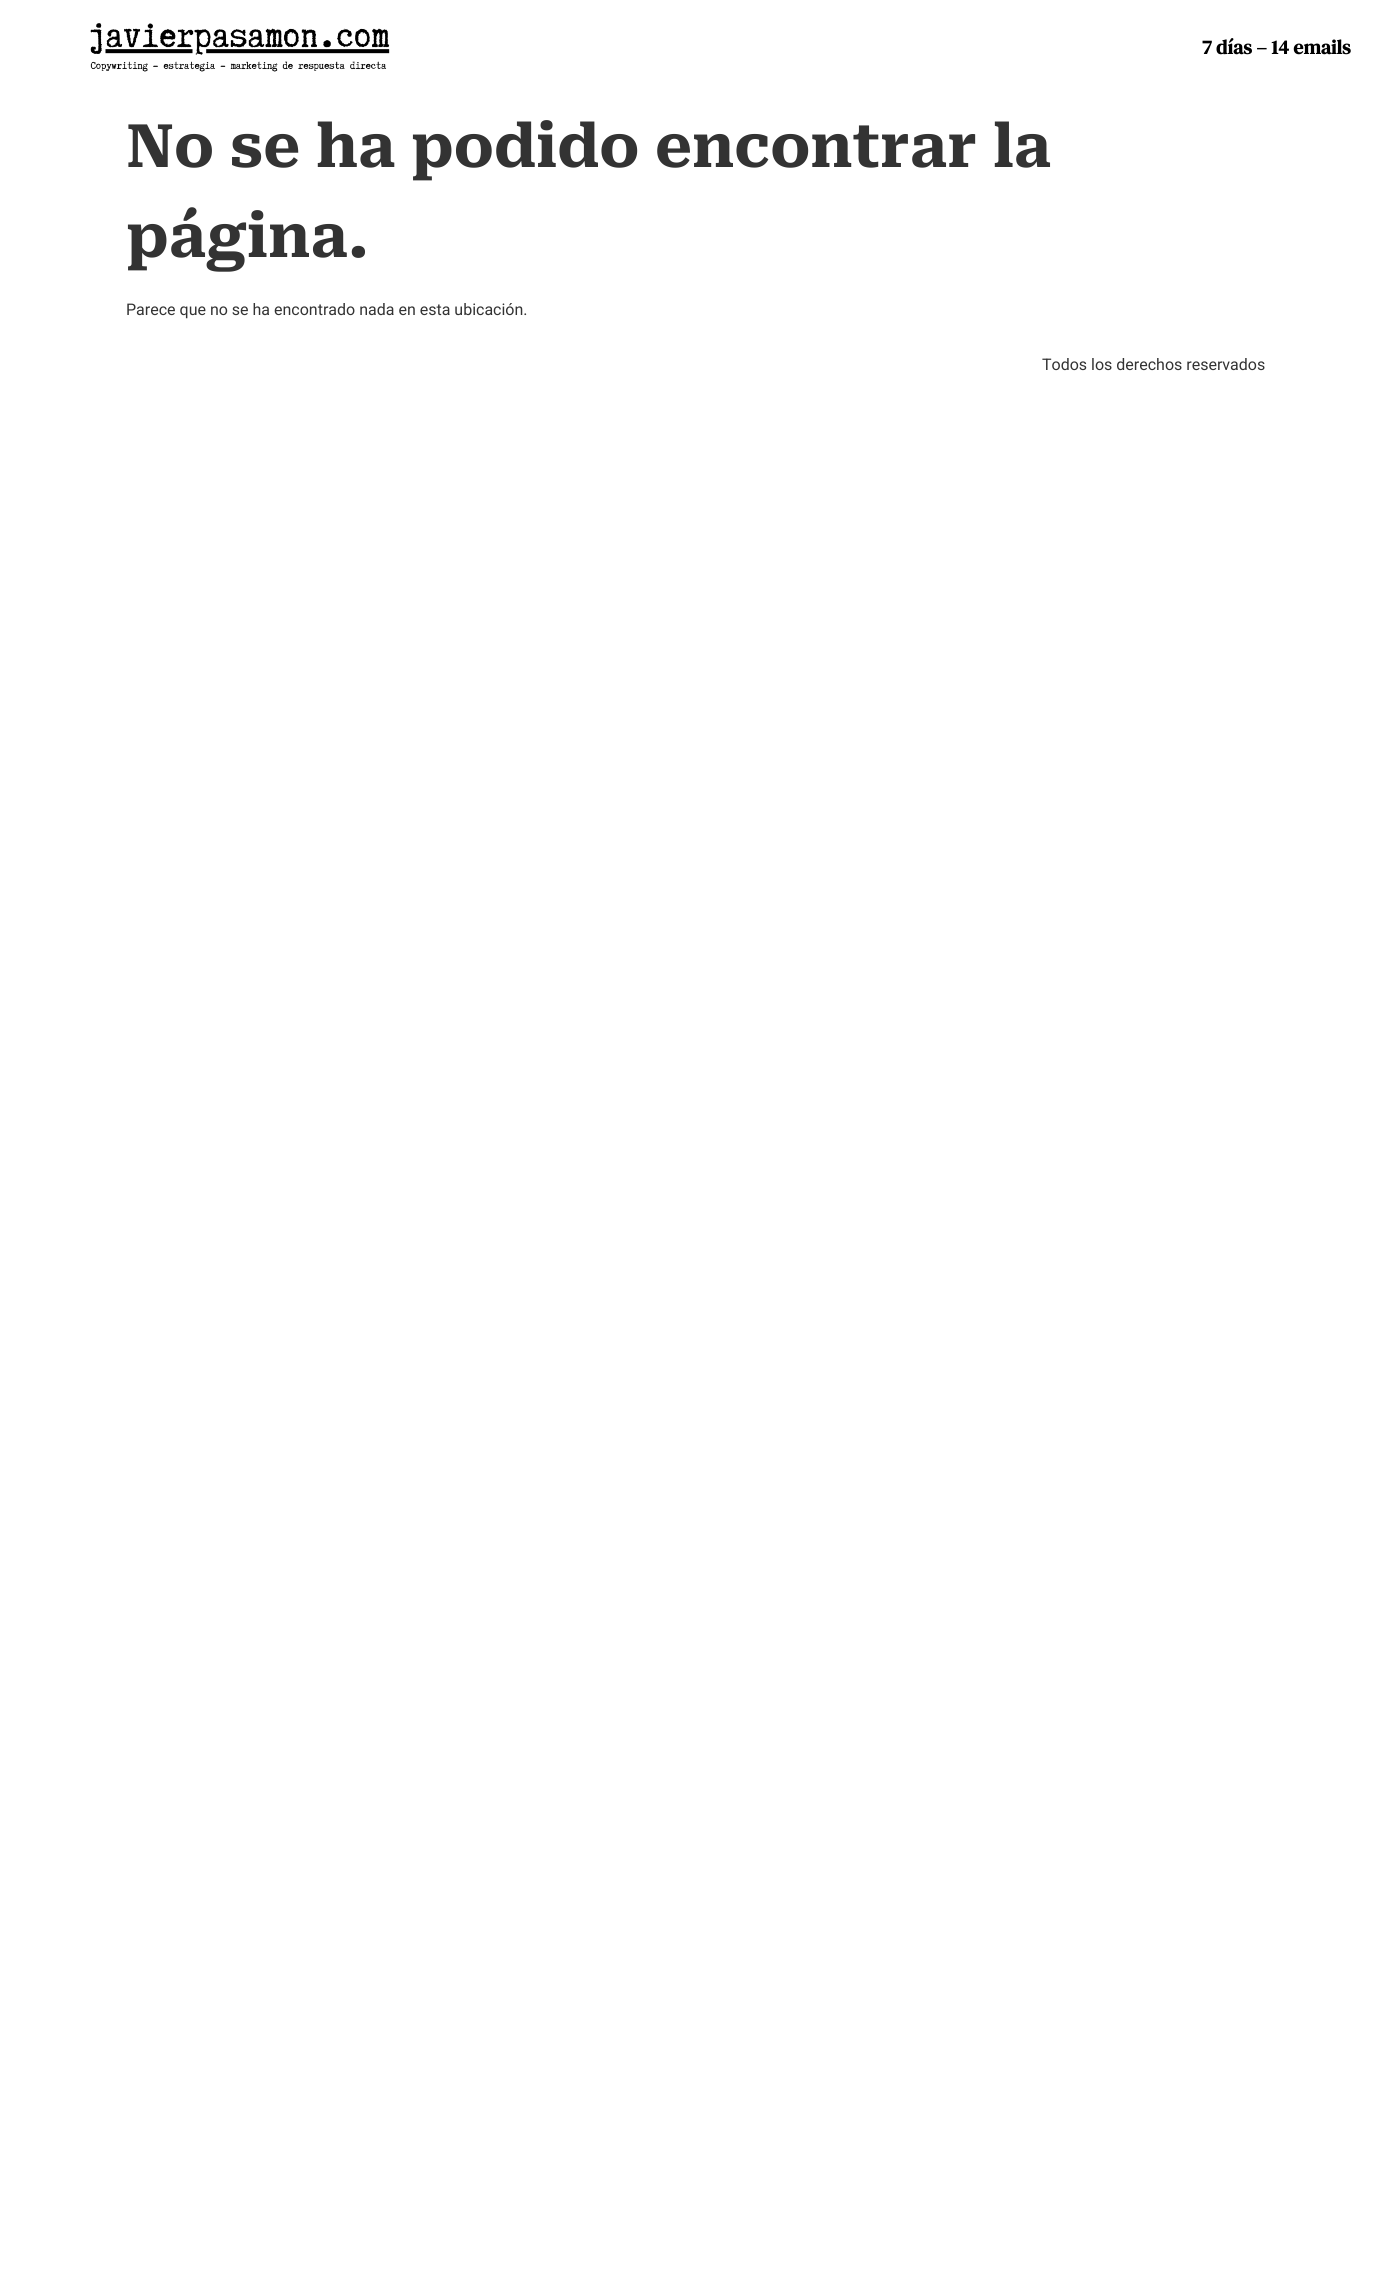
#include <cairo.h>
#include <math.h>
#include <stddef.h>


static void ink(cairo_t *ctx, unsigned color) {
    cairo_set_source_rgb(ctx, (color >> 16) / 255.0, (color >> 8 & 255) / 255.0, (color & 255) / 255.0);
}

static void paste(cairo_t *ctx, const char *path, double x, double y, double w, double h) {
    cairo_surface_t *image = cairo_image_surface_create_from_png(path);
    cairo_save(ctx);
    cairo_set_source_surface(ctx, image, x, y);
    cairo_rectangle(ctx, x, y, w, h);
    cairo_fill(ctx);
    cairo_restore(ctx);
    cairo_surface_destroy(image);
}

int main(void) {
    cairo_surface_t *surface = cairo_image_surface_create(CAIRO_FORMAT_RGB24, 1391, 2289);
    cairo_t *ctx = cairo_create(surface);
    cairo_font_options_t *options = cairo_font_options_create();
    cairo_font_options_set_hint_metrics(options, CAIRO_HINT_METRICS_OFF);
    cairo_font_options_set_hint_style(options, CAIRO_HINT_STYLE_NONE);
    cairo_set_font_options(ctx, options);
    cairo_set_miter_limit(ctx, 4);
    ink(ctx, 0xFFFFFF);
    cairo_paint(ctx);
    paste(ctx, "media/1.png", 90, 23, 300, 49);
    cairo_select_font_face(ctx, "DM Serif Text", CAIRO_FONT_SLANT_NORMAL, CAIRO_FONT_WEIGHT_BOLD);
    cairo_set_font_size(ctx, 20);
    ink(ctx, 0x000000);
    cairo_move_to(ctx, 1202, 54);
    cairo_show_text(ctx, "7 días – 14 emails");
    cairo_select_font_face(ctx, "Roboto Serif", CAIRO_FONT_SLANT_NORMAL, CAIRO_FONT_WEIGHT_BOLD);
    cairo_set_font_size(ctx, 60);
    ink(ctx, 0x333333);
    cairo_move_to(ctx, 126, 167);
    cairo_show_text(ctx, "No se ha podido encontrar la");
    cairo_move_to(ctx, 126, 257);
    cairo_show_text(ctx, "página.");
    cairo_select_font_face(ctx, "Roboto", CAIRO_FONT_SLANT_NORMAL, CAIRO_FONT_WEIGHT_NORMAL);
    cairo_set_font_size(ctx, 16);
    cairo_move_to(ctx, 126, 315);
    cairo_show_text(ctx, "Parece que no se ha encontrado nada en esta ubicación.");
    cairo_move_to(ctx, 1042, 370);
    cairo_show_text(ctx, "Todos los derechos reservados");
    cairo_surface_write_to_png(surface, "image.png");
    cairo_font_options_destroy(options);
    cairo_destroy(ctx);
    cairo_surface_destroy(surface);
    return 0;
}
